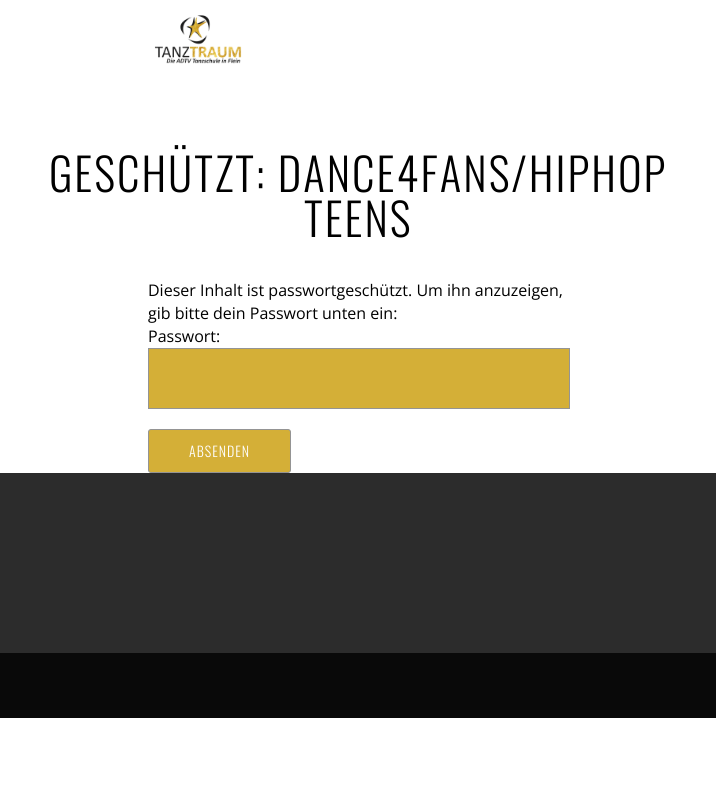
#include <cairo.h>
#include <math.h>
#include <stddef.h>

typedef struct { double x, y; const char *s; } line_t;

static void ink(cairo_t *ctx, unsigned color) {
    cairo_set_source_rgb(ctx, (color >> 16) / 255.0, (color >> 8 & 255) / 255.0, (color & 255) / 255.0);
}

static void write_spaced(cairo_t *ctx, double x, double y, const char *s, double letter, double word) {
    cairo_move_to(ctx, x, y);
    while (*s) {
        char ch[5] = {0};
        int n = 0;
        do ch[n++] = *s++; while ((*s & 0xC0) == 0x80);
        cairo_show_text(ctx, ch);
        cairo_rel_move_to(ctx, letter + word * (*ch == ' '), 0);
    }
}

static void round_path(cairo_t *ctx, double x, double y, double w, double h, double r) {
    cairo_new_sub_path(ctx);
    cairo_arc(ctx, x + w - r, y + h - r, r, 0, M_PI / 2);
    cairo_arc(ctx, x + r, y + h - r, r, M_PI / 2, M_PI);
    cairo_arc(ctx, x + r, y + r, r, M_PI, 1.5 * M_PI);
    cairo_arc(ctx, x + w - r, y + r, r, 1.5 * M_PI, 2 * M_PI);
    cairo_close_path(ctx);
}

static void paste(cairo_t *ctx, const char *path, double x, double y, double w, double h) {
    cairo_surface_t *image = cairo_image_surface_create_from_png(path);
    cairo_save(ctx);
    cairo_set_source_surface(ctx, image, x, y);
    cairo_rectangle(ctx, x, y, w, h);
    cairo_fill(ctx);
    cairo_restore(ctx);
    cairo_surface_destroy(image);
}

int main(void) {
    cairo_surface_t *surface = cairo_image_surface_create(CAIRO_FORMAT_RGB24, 716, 785);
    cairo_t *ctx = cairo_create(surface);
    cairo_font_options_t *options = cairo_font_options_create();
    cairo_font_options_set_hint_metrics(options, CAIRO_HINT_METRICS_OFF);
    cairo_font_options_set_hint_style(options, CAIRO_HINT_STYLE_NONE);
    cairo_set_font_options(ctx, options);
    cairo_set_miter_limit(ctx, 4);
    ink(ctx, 0xFFFFFF);
    cairo_paint(ctx);
    paste(ctx, "media/1.png", 154, 15, 88, 49);
    cairo_select_font_face(ctx, "Oswald Light", CAIRO_FONT_SLANT_NORMAL, CAIRO_FONT_WEIGHT_NORMAL);
    cairo_set_font_size(ctx, 45);
    ink(ctx, 0x000000);
    write_spaced(ctx, 49, 192, "GESCHÜTZT: DANCE4FANS/HIPHOP", 2, 0);
    write_spaced(ctx, 304, 237, "TEENS", 2, 0);
    cairo_select_font_face(ctx, "Open Sans", CAIRO_FONT_SLANT_NORMAL, CAIRO_FONT_WEIGHT_NORMAL);
    cairo_set_font_size(ctx, 16);
    {
        static const line_t items[] = {
            {148, 296, "Dieser Inhalt ist passwortgeschützt. Um ihn anzuzeigen,"},
            {148, 319, "gib bitte dein Passwort unten ein:"},
            {148, 342, "Passwort:"},
        };
        for (size_t i = 0; i < sizeof items / sizeof *items; i++) {
            cairo_move_to(ctx, items[i].x, items[i].y);
            cairo_show_text(ctx, items[i].s);
        }
    }
    ink(ctx, 0xD4AF37);
    cairo_rectangle(ctx, 148.5, 348.5, 421, 60);
    cairo_fill_preserve(ctx);
    ink(ctx, 0x949494);
    cairo_set_line_width(ctx, 1);
    cairo_stroke(ctx);
    ink(ctx, 0xD4AF37);
    round_path(ctx, 148.5, 429.5, 142, 43, 2.5);
    cairo_fill_preserve(ctx);
    ink(ctx, 0x949494);
    cairo_stroke(ctx);
    cairo_select_font_face(ctx, "Oswald Light", CAIRO_FONT_SLANT_NORMAL, CAIRO_FONT_WEIGHT_NORMAL);
    cairo_set_font_size(ctx, 14);
    ink(ctx, 0xFFFFFF);
    write_spaced(ctx, 189, 457, "ABSENDEN", 1, 0);
    ink(ctx, 0x2C2C2C);
    cairo_rectangle(ctx, 0, 473, 716, 180);
    cairo_fill(ctx);
    ink(ctx, 0x090909);
    cairo_rectangle(ctx, 0, 653, 716, 65);
    cairo_fill(ctx);
    cairo_surface_write_to_png(surface, "image.png");
    cairo_font_options_destroy(options);
    cairo_destroy(ctx);
    cairo_surface_destroy(surface);
    return 0;
}
